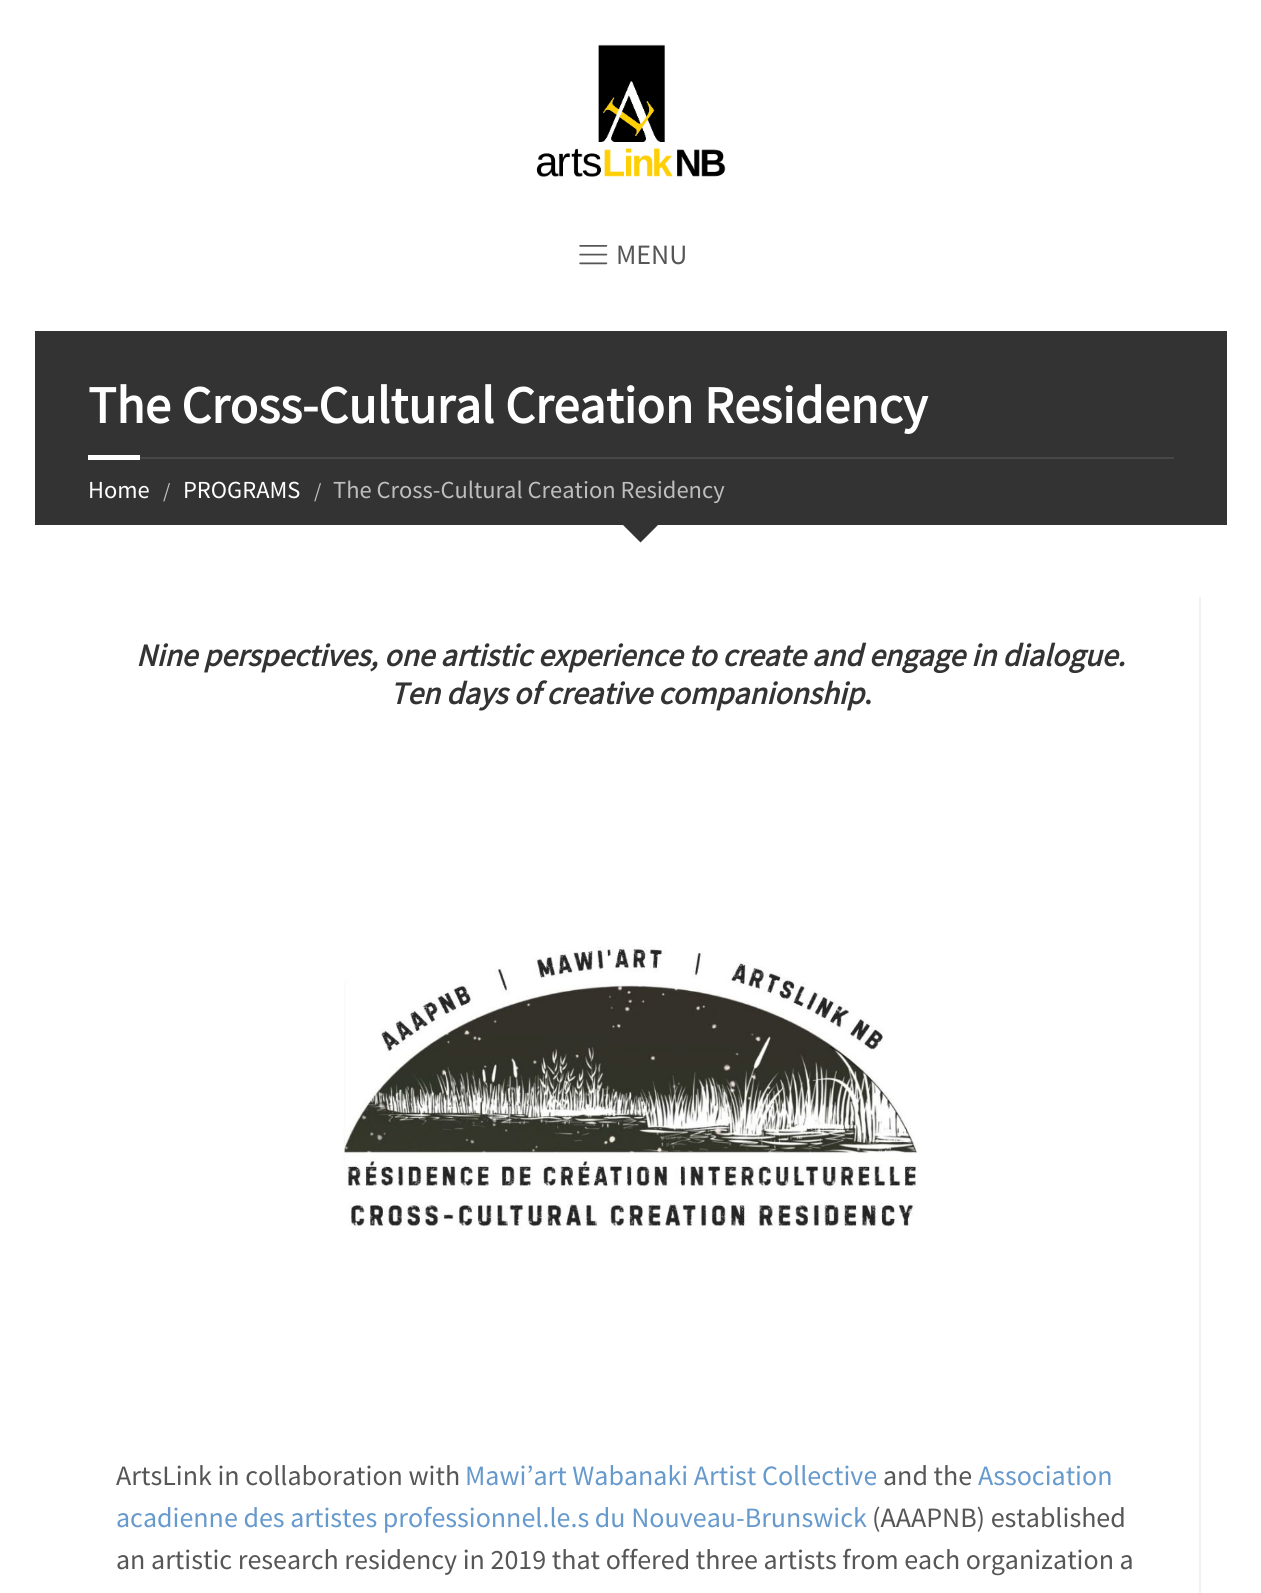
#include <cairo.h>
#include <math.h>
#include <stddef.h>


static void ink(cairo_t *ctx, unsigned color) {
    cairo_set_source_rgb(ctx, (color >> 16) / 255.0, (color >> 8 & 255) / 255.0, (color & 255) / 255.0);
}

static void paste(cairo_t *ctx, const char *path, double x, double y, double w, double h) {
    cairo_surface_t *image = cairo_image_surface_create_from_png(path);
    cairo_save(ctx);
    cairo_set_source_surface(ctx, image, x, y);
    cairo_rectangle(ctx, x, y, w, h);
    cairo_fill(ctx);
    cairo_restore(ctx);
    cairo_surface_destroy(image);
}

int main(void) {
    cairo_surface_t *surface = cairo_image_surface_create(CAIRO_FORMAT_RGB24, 1261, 1593);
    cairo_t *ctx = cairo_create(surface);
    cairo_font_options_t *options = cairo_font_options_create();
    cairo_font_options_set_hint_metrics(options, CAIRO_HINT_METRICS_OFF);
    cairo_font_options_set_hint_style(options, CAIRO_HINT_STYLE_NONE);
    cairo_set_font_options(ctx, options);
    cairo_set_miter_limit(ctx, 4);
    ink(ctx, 0xFFFFFF);
    cairo_paint(ctx);
    paste(ctx, "media/1.png", 536, 44, 190, 133);
    paste(ctx, "media/2.png", 579, 245, 29, 20);
    cairo_select_font_face(ctx, "Source Sans Pro", CAIRO_FONT_SLANT_NORMAL, CAIRO_FONT_WEIGHT_NORMAL);
    cairo_set_font_size(ctx, 28);
    ink(ctx, 0x565656);
    cairo_move_to(ctx, 616, 264);
    cairo_show_text(ctx, "MENU");
    ink(ctx, 0x333333);
    cairo_rectangle(ctx, 35, 331, 1192, 194);
    cairo_fill(ctx);
    ink(ctx, 0x474747);
    cairo_rectangle(ctx, 140, 457, 1034, 2);
    cairo_fill(ctx);
    cairo_select_font_face(ctx, "Source Sans Pro", CAIRO_FONT_SLANT_NORMAL, CAIRO_FONT_WEIGHT_BOLD);
    cairo_set_font_size(ctx, 52.5);
    ink(ctx, 0xFFFFFF);
    cairo_move_to(ctx, 88, 423);
    cairo_show_text(ctx, "The Cross-Cultural Creation Residency");
    cairo_rectangle(ctx, 88, 455, 52, 5);
    cairo_fill(ctx);
    cairo_select_font_face(ctx, "Source Sans Pro", CAIRO_FONT_SLANT_NORMAL, CAIRO_FONT_WEIGHT_NORMAL);
    cairo_set_font_size(ctx, 24.5);
    cairo_move_to(ctx, 88, 498);
    cairo_show_text(ctx, "Home");
    cairo_set_font_size(ctx, 21);
    ink(ctx, 0xBEBEBE);
    cairo_move_to(ctx, 163, 498);
    cairo_show_text(ctx, "/");
    cairo_set_font_size(ctx, 24.5);
    ink(ctx, 0xFFFFFF);
    cairo_move_to(ctx, 183, 498);
    cairo_show_text(ctx, "PROGRAMS");
    cairo_set_font_size(ctx, 21);
    ink(ctx, 0xBEBEBE);
    cairo_move_to(ctx, 314, 498);
    cairo_show_text(ctx, "/");
    cairo_set_font_size(ctx, 24.5);
    cairo_move_to(ctx, 333, 498);
    cairo_show_text(ctx, "The Cross-Cultural Creation Residency");
    ink(ctx, 0x333333);
    cairo_new_path(ctx);
    cairo_move_to(ctx, 623, 525);
    cairo_line_to(ctx, 658, 525);
    cairo_line_to(ctx, 640.5, 542.5);
    cairo_close_path(ctx);
    cairo_fill(ctx);
    ink(ctx, 0xF2F2F2);
    cairo_new_path(ctx);
    cairo_move_to(ctx, 65, 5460);
    cairo_line_to(ctx, 65, 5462);
    cairo_line_to(ctx, 1201, 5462);
    cairo_line_to(ctx, 1201, 597);
    cairo_line_to(ctx, 1199, 597);
    cairo_line_to(ctx, 1199, 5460);
    cairo_close_path(ctx);
    cairo_fill(ctx);
    cairo_select_font_face(ctx, "Source Sans Pro", CAIRO_FONT_SLANT_ITALIC, CAIRO_FONT_WEIGHT_BOLD);
    cairo_set_font_size(ctx, 31.5);
    ink(ctx, 0x333333);
    cairo_move_to(ctx, 136, 666);
    cairo_show_text(ctx, "Nine perspectives, one artistic experience to create and engage in dialogue.");
    cairo_move_to(ctx, 390, 704);
    cairo_show_text(ctx, "Ten days of creative companionship");
    cairo_select_font_face(ctx, "Source Sans Pro", CAIRO_FONT_SLANT_NORMAL, CAIRO_FONT_WEIGHT_BOLD);
    cairo_move_to(ctx, 864, 704);
    cairo_show_text(ctx, ".");
    paste(ctx, "media/3.png", 342, 946, 577, 284);
    cairo_select_font_face(ctx, "Source Sans Pro", CAIRO_FONT_SLANT_NORMAL, CAIRO_FONT_WEIGHT_NORMAL);
    cairo_set_font_size(ctx, 28);
    ink(ctx, 0x565656);
    cairo_move_to(ctx, 116, 1485);
    cairo_show_text(ctx, "ArtsLink in collaboration with");
    ink(ctx, 0x6699CC);
    cairo_move_to(ctx, 465, 1485);
    cairo_show_text(ctx, "Mawi’art Wabanaki Artist Collective");
    ink(ctx, 0x565656);
    cairo_move_to(ctx, 883, 1485);
    cairo_show_text(ctx, "and the");
    ink(ctx, 0x6699CC);
    cairo_move_to(ctx, 978, 1485);
    cairo_show_text(ctx, "Association");
    cairo_move_to(ctx, 116, 1527);
    cairo_show_text(ctx, "acadienne des artistes professionnel.le.s du Nouveau-Brunswick");
    ink(ctx, 0x565656);
    cairo_move_to(ctx, 872, 1527);
    cairo_show_text(ctx, "(AAAPNB) established");
    cairo_move_to(ctx, 116, 1569);
    cairo_show_text(ctx, "an artistic research residency in 2019 that offered three artists from each organization a");
    cairo_surface_write_to_png(surface, "image.png");
    cairo_font_options_destroy(options);
    cairo_destroy(ctx);
    cairo_surface_destroy(surface);
    return 0;
}
